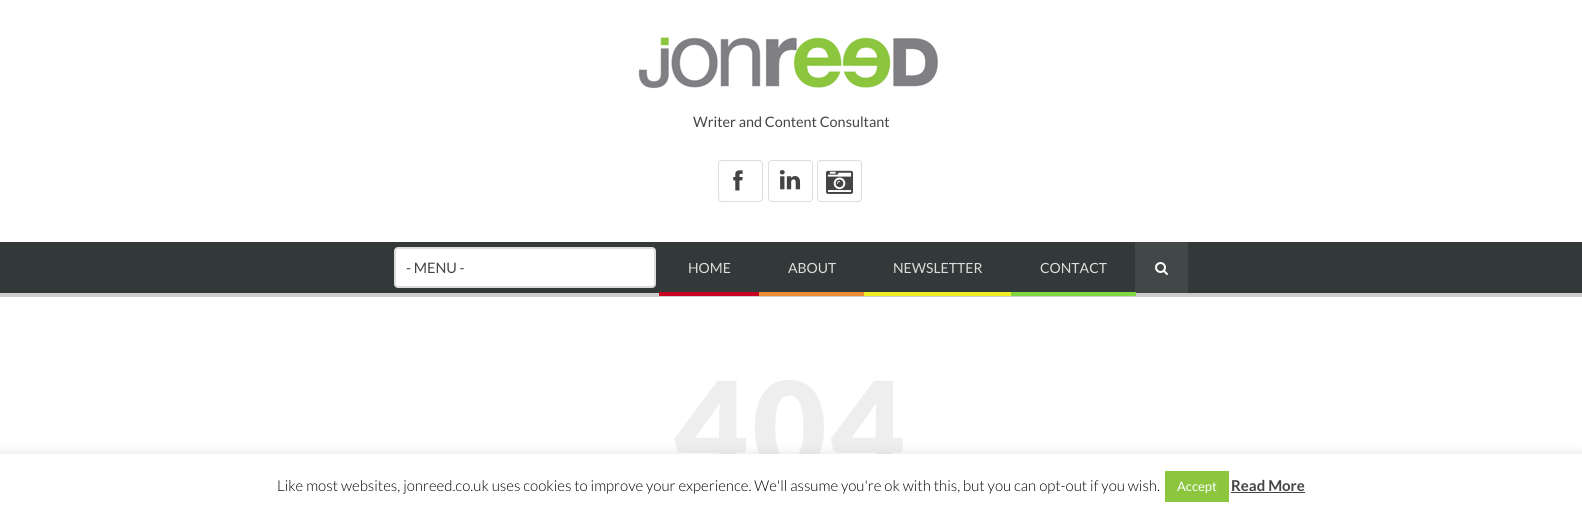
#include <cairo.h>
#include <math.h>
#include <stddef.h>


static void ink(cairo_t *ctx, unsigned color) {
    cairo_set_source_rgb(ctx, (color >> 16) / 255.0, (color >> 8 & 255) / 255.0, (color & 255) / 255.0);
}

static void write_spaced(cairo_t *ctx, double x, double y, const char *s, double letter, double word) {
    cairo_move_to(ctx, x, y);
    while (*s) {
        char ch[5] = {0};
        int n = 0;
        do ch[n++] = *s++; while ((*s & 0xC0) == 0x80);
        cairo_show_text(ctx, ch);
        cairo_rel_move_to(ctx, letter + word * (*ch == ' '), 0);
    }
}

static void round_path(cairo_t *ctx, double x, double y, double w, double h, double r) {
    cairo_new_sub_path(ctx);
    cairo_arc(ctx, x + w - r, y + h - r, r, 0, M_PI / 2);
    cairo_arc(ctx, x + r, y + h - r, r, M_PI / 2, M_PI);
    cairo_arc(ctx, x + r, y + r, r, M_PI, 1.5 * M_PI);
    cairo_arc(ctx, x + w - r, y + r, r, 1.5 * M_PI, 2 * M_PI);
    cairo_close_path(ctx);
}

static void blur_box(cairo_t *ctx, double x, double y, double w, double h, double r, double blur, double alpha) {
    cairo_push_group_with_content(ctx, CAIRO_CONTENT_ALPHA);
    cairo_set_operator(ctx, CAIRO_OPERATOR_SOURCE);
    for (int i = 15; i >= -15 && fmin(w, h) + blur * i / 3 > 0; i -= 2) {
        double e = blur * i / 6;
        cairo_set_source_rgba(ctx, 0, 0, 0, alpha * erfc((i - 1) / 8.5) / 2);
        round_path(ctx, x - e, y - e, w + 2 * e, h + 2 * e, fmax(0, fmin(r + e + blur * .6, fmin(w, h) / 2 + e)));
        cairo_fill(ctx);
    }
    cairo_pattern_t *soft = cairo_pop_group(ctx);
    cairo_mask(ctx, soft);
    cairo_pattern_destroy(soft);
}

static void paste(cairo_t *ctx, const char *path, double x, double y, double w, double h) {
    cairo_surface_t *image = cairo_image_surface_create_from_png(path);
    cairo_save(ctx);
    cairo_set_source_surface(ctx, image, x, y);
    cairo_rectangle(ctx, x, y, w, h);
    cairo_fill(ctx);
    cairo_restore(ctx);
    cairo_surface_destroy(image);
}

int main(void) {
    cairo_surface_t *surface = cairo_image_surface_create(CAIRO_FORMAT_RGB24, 1582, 514);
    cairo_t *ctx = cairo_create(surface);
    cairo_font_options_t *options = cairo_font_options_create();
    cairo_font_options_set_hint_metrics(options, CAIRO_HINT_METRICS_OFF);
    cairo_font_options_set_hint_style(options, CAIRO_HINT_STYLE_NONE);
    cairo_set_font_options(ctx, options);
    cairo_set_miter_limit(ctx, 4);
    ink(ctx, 0xFFFFFF);
    cairo_paint(ctx);
    paste(ctx, "media/1.png", 638, 37, 300, 52);
    cairo_select_font_face(ctx, "Lato", CAIRO_FONT_SLANT_NORMAL, CAIRO_FONT_WEIGHT_NORMAL);
    cairo_set_font_size(ctx, 14.4);
    ink(ctx, 0x444444);
    cairo_move_to(ctx, 693, 127);
    cairo_show_text(ctx, "Writer and Content Consultant");
    round_path(ctx, 718.5, 160.5, 44, 41, 3.5);
    ink(ctx, 0xDDDDDD);
    cairo_set_line_width(ctx, 1);
    cairo_stroke(ctx);
    cairo_select_font_face(ctx, "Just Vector", CAIRO_FONT_SLANT_NORMAL, CAIRO_FONT_WEIGHT_NORMAL);
    cairo_set_font_size(ctx, 32);
    ink(ctx, 0x444444);
    cairo_move_to(ctx, 727, 191);
    cairo_show_text(ctx, "X");
    round_path(ctx, 768.5, 160.5, 44, 41, 3.5);
    ink(ctx, 0xDDDDDD);
    cairo_stroke(ctx);
    ink(ctx, 0x444444);
    cairo_move_to(ctx, 777, 191);
    cairo_show_text(ctx, "v");
    round_path(ctx, 817.5, 160.5, 44, 41, 3.5);
    ink(ctx, 0xDDDDDD);
    cairo_stroke(ctx);
    paste(ctx, "media/2.png", 826, 170, 27, 24);
    ink(ctx, 0x333838);
    cairo_rectangle(ctx, 0, 242, 1582, 51);
    cairo_fill(ctx);
    ink(ctx, 0xCCCCCC);
    cairo_rectangle(ctx, 0, 293, 1582, 4);
    cairo_fill(ctx);
    ink(ctx, 0xFFFFFF);
    round_path(ctx, 395, 248, 260, 39, 3);
    cairo_fill_preserve(ctx);
    ink(ctx, 0xDDDDDD);
    cairo_set_line_width(ctx, 2);
    cairo_stroke(ctx);
    cairo_select_font_face(ctx, "Lato", CAIRO_FONT_SLANT_NORMAL, CAIRO_FONT_WEIGHT_NORMAL);
    cairo_set_font_size(ctx, 14.4);
    ink(ctx, 0x444444);
    cairo_move_to(ctx, 406, 273);
    cairo_show_text(ctx, "- MENU -");
    ink(ctx, 0xC80021);
    cairo_rectangle(ctx, 659, 292, 101, 4);
    cairo_fill(ctx);
    cairo_set_font_size(ctx, 14);
    ink(ctx, 0xDDDDDD);
    cairo_move_to(ctx, 688, 273);
    cairo_show_text(ctx, "HOME");
    ink(ctx, 0xEF8D37);
    cairo_rectangle(ctx, 759, 292, 106, 4);
    cairo_fill(ctx);
    ink(ctx, 0xDDDDDD);
    cairo_move_to(ctx, 788, 273);
    cairo_show_text(ctx, "ABOUT");
    ink(ctx, 0xEEEE22);
    cairo_rectangle(ctx, 864, 292, 148, 4);
    cairo_fill(ctx);
    ink(ctx, 0xDDDDDD);
    cairo_move_to(ctx, 893, 273);
    cairo_show_text(ctx, "NEWSLETTER");
    ink(ctx, 0x424747);
    cairo_rectangle(ctx, 1135, 242, 53, 51);
    cairo_fill(ctx);
    ink(ctx, 0x81D742);
    cairo_rectangle(ctx, 1011, 292, 125, 4);
    cairo_fill(ctx);
    ink(ctx, 0xDDDDDD);
    cairo_move_to(ctx, 1040, 273);
    cairo_show_text(ctx, "CONTACT");
    paste(ctx, "media/3.png", 1155, 262, 13, 13);
    cairo_select_font_face(ctx, "Lato Black", CAIRO_FONT_SLANT_NORMAL, CAIRO_FONT_WEIGHT_NORMAL);
    cairo_set_font_size(ctx, 128);
    ink(ctx, 0xEEEEEE);
    write_spaced(ctx, 674, 474, "404", 4, 0);
    ink(ctx, 0xACABAB);
    blur_box(ctx, 0, 453, 1582, 60, 0, 5, 0.3);
    ink(ctx, 0xFFFFFF);
    cairo_rectangle(ctx, 0, 454, 1582, 60);
    cairo_fill(ctx);
    cairo_select_font_face(ctx, "Lato Light", CAIRO_FONT_SLANT_NORMAL, CAIRO_FONT_WEIGHT_NORMAL);
    cairo_set_font_size(ctx, 15);
    ink(ctx, 0x000000);
    cairo_move_to(ctx, 277, 491);
    cairo_show_text(ctx, "Like most websites, jonreed.co.uk uses cookies to improve your experience. We'll assume you're ok with this, but you can opt-out if you wish.");
    ink(ctx, 0x8CC63F);
    cairo_rectangle(ctx, 1165, 471, 64, 31);
    cairo_fill(ctx);
    cairo_select_font_face(ctx, "Lato", CAIRO_FONT_SLANT_NORMAL, CAIRO_FONT_WEIGHT_NORMAL);
    cairo_set_font_size(ctx, 13);
    ink(ctx, 0xFFFFFF);
    cairo_move_to(ctx, 1177, 491);
    cairo_show_text(ctx, "Accept");
    cairo_select_font_face(ctx, "Lato", CAIRO_FONT_SLANT_NORMAL, CAIRO_FONT_WEIGHT_BOLD);
    cairo_set_font_size(ctx, 15);
    ink(ctx, 0x444444);
    cairo_move_to(ctx, 1231, 491);
    cairo_show_text(ctx, "Read More");
    cairo_rectangle(ctx, 1231, 492, 74, 1);
    cairo_fill(ctx);
    cairo_surface_write_to_png(surface, "image.png");
    cairo_font_options_destroy(options);
    cairo_destroy(ctx);
    cairo_surface_destroy(surface);
    return 0;
}
